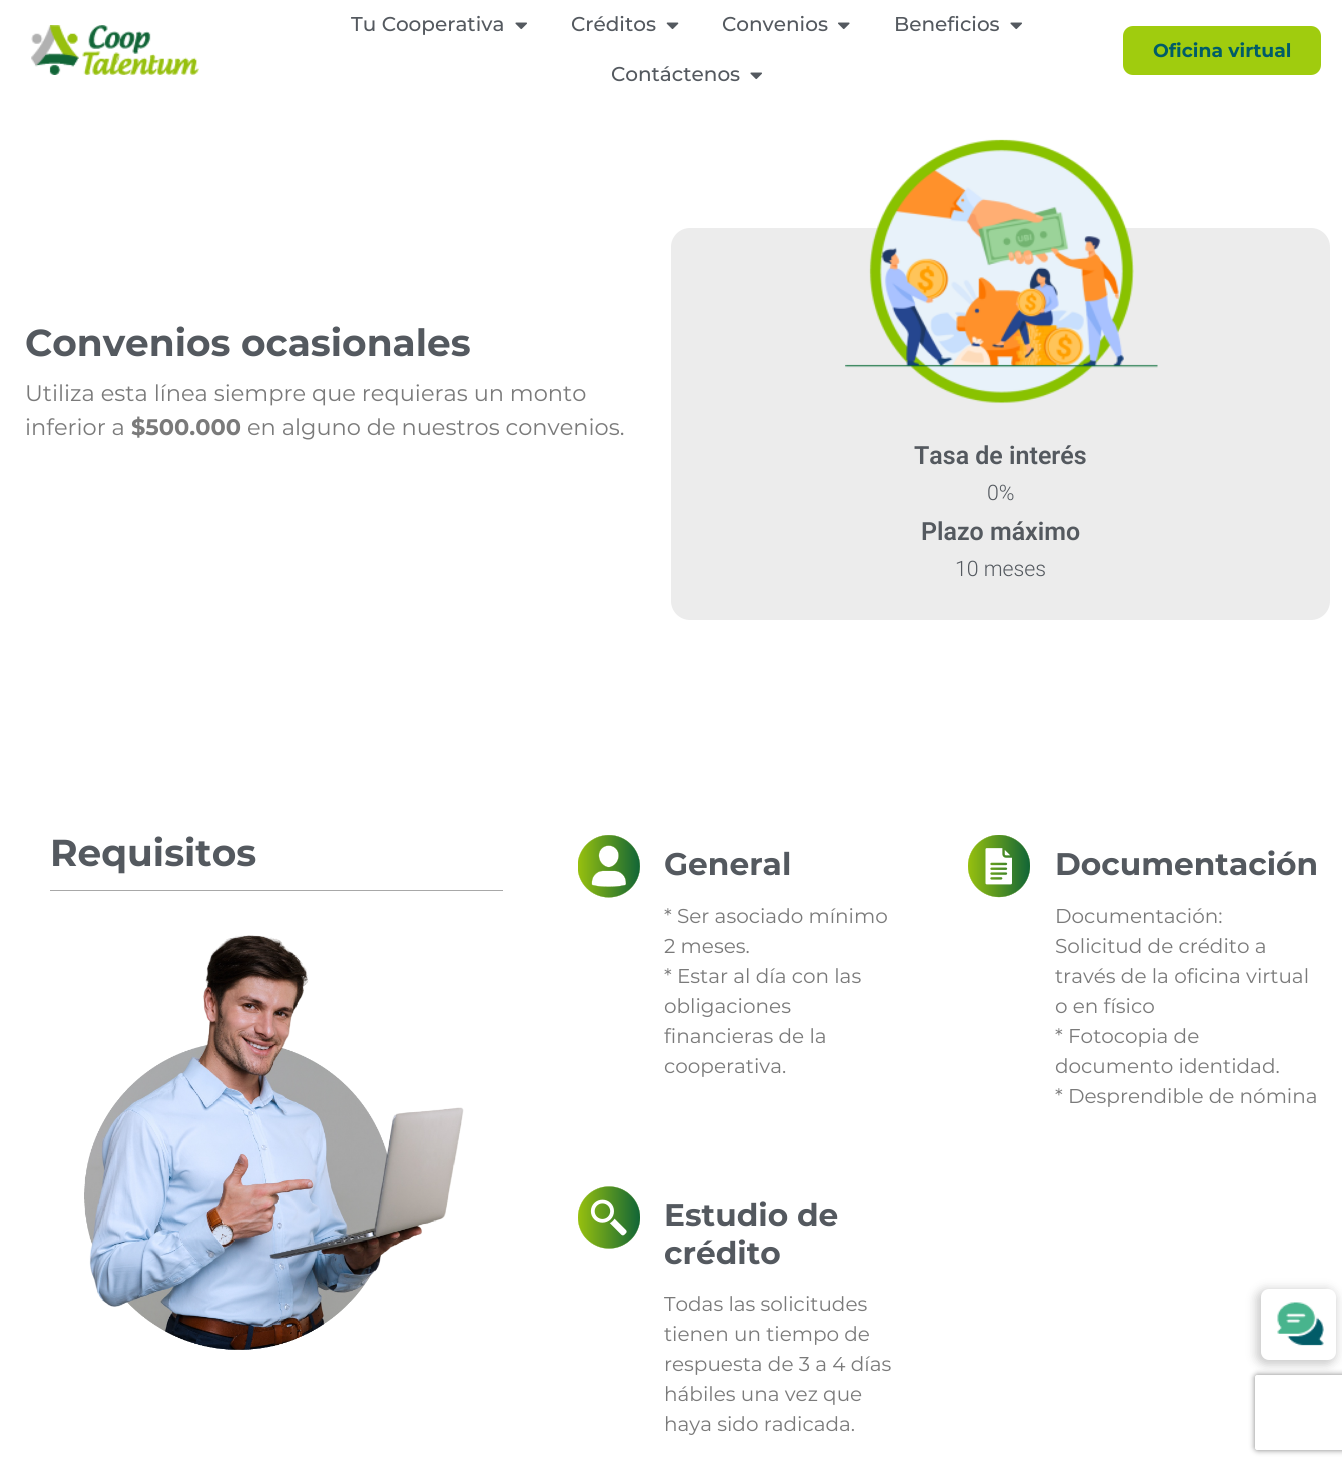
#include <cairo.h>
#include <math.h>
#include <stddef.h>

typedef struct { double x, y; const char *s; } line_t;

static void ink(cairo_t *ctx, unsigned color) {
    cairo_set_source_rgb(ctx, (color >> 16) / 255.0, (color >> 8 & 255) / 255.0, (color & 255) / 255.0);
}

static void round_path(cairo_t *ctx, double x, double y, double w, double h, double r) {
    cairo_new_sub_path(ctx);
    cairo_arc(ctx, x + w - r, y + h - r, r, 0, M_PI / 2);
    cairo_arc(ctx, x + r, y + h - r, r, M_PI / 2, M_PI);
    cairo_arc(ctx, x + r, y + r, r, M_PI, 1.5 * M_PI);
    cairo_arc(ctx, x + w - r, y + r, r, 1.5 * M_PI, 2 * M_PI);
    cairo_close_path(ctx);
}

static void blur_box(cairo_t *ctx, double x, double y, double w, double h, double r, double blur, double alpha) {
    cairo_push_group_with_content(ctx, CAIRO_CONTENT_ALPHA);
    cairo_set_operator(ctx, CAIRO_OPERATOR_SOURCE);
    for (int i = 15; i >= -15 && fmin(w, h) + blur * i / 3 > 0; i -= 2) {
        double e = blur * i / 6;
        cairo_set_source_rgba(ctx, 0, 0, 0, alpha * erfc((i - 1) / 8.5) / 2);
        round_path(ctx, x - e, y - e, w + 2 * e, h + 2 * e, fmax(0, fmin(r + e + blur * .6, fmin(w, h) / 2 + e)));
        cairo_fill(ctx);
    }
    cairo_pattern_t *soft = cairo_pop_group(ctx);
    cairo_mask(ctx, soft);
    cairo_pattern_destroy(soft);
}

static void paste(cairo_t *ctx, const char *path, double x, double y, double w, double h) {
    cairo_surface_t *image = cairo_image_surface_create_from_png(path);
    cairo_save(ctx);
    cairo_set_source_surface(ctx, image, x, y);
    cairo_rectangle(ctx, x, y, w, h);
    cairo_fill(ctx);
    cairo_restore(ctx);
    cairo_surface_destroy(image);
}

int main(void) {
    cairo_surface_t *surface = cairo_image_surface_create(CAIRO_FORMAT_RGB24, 1342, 1467);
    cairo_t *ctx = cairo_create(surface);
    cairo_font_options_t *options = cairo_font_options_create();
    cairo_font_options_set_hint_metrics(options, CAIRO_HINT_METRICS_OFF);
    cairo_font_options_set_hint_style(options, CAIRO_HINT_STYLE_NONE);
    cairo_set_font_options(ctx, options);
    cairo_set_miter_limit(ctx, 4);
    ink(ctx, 0xFFFFFF);
    cairo_paint(ctx);
    paste(ctx, "media/1.png", 31, 25, 168, 50);
    cairo_select_font_face(ctx, "Montserrat Medium", CAIRO_FONT_SLANT_NORMAL, CAIRO_FONT_WEIGHT_NORMAL);
    cairo_set_font_size(ctx, 20);
    ink(ctx, 0x54595F);
    cairo_move_to(ctx, 351, 31);
    cairo_show_text(ctx, "Tu Cooperativa");
    paste(ctx, "media/2.png", 515, 22, 12, 8);
    cairo_move_to(ctx, 571, 31);
    cairo_show_text(ctx, "Créditos");
    paste(ctx, "media/3.png", 666, 22, 13, 8);
    cairo_move_to(ctx, 722, 31);
    cairo_show_text(ctx, "Convenios");
    paste(ctx, "media/4.png", 838, 22, 12, 8);
    cairo_move_to(ctx, 894, 31);
    cairo_show_text(ctx, "Beneficios");
    paste(ctx, "media/2.png", 1010, 22, 12, 8);
    cairo_move_to(ctx, 611, 81);
    cairo_show_text(ctx, "Contáctenos");
    paste(ctx, "media/2.png", 750, 72, 12, 8);
    ink(ctx, 0xA0CC0E);
    round_path(ctx, 1123, 26, 198, 49, 10);
    cairo_fill(ctx);
    cairo_select_font_face(ctx, "Montserrat", CAIRO_FONT_SLANT_NORMAL, CAIRO_FONT_WEIGHT_BOLD);
    cairo_set_font_size(ctx, 18.75);
    ink(ctx, 0x005C68);
    cairo_move_to(ctx, 1153, 57);
    cairo_show_text(ctx, "Oficina virtual");
    cairo_set_font_size(ctx, 37.5);
    ink(ctx, 0x54595F);
    cairo_move_to(ctx, 25, 356);
    cairo_show_text(ctx, "Convenios ocasionales");
    cairo_select_font_face(ctx, "Montserrat", CAIRO_FONT_SLANT_NORMAL, CAIRO_FONT_WEIGHT_NORMAL);
    cairo_set_font_size(ctx, 22.5);
    ink(ctx, 0x7A7A7A);
    cairo_move_to(ctx, 25, 401);
    cairo_show_text(ctx, "Utiliza esta línea siempre que requieras un monto");
    cairo_move_to(ctx, 25, 435);
    cairo_show_text(ctx, "inferior a");
    cairo_select_font_face(ctx, "Montserrat", CAIRO_FONT_SLANT_NORMAL, CAIRO_FONT_WEIGHT_BOLD);
    cairo_move_to(ctx, 131, 435);
    cairo_show_text(ctx, "$500.000");
    cairo_select_font_face(ctx, "Montserrat", CAIRO_FONT_SLANT_NORMAL, CAIRO_FONT_WEIGHT_NORMAL);
    cairo_move_to(ctx, 247, 435);
    cairo_show_text(ctx, "en alguno de nuestros convenios.");
    ink(ctx, 0xECECEC);
    round_path(ctx, 671, 228, 659, 392, 19);
    cairo_fill(ctx);
    paste(ctx, "media/5.png", 845, 139, 313, 265);
    cairo_select_font_face(ctx, "Roboto SemiBold", CAIRO_FONT_SLANT_NORMAL, CAIRO_FONT_WEIGHT_NORMAL);
    cairo_set_font_size(ctx, 25);
    ink(ctx, 0x54595F);
    cairo_move_to(ctx, 914, 464);
    cairo_show_text(ctx, "Tasa de interés");
    cairo_select_font_face(ctx, "Roboto Light", CAIRO_FONT_SLANT_NORMAL, CAIRO_FONT_WEIGHT_NORMAL);
    cairo_set_font_size(ctx, 21.25);
    cairo_move_to(ctx, 987, 500);
    cairo_show_text(ctx, "0%");
    cairo_select_font_face(ctx, "Roboto SemiBold", CAIRO_FONT_SLANT_NORMAL, CAIRO_FONT_WEIGHT_NORMAL);
    cairo_set_font_size(ctx, 25);
    cairo_move_to(ctx, 921, 540);
    cairo_show_text(ctx, "Plazo máximo");
    cairo_select_font_face(ctx, "Roboto Light", CAIRO_FONT_SLANT_NORMAL, CAIRO_FONT_WEIGHT_NORMAL);
    cairo_set_font_size(ctx, 21.25);
    cairo_move_to(ctx, 955, 576);
    cairo_show_text(ctx, "10 meses");
    cairo_select_font_face(ctx, "Montserrat", CAIRO_FONT_SLANT_NORMAL, CAIRO_FONT_WEIGHT_BOLD);
    cairo_set_font_size(ctx, 37.5);
    cairo_move_to(ctx, 50, 866);
    cairo_show_text(ctx, "Requisitos");
    ink(ctx, 0xA8A8A8);
    cairo_rectangle(ctx, 50, 890, 453, 1);
    cairo_fill(ctx);
    paste(ctx, "media/6.png", 578, 835, 62, 63);
    cairo_set_font_size(ctx, 31.25);
    ink(ctx, 0x54595F);
    cairo_move_to(ctx, 664, 875);
    cairo_show_text(ctx, "General");
    cairo_select_font_face(ctx, "Montserrat", CAIRO_FONT_SLANT_NORMAL, CAIRO_FONT_WEIGHT_NORMAL);
    cairo_set_font_size(ctx, 20);
    ink(ctx, 0x7A7A7A);
    {
        static const line_t items[] = {
            {664, 923, "* Ser asociado mínimo"},
            {664, 953, "2 meses."},
            {664, 983, "* Estar al día con las"},
            {664, 1013, "obligaciones"},
            {664, 1043, "financieras de la"},
            {664, 1073, "cooperativa."},
        };
        for (size_t i = 0; i < sizeof items / sizeof *items; i++) {
            cairo_move_to(ctx, items[i].x, items[i].y);
            cairo_show_text(ctx, items[i].s);
        }
    }
    paste(ctx, "media/7.png", 968, 835, 62, 63);
    cairo_select_font_face(ctx, "Montserrat", CAIRO_FONT_SLANT_NORMAL, CAIRO_FONT_WEIGHT_BOLD);
    cairo_set_font_size(ctx, 31.25);
    ink(ctx, 0x54595F);
    cairo_move_to(ctx, 1055, 875);
    cairo_show_text(ctx, "Documentación");
    cairo_select_font_face(ctx, "Montserrat", CAIRO_FONT_SLANT_NORMAL, CAIRO_FONT_WEIGHT_NORMAL);
    cairo_set_font_size(ctx, 20);
    ink(ctx, 0x7A7A7A);
    {
        static const line_t items[] = {
            {1055, 923, "Documentación:"},
            {1055, 953, "Solicitud de crédito a"},
            {1055, 983, "través de la oficina virtual"},
            {1055, 1013, "o en físico"},
            {1055, 1043, "* Fotocopia de"},
            {1055, 1073, "documento identidad."},
            {1055, 1103, "* Desprendible de nómina"},
        };
        for (size_t i = 0; i < sizeof items / sizeof *items; i++) {
            cairo_move_to(ctx, items[i].x, items[i].y);
            cairo_show_text(ctx, items[i].s);
        }
    }
    paste(ctx, "media/8.png", 84, 935, 380, 415);
    paste(ctx, "media/9.png", 578, 1186, 62, 63);
    cairo_select_font_face(ctx, "Montserrat", CAIRO_FONT_SLANT_NORMAL, CAIRO_FONT_WEIGHT_BOLD);
    cairo_set_font_size(ctx, 31.25);
    ink(ctx, 0x54595F);
    cairo_move_to(ctx, 664, 1226);
    cairo_show_text(ctx, "Estudio de");
    cairo_move_to(ctx, 664, 1264);
    cairo_show_text(ctx, "crédito");
    cairo_select_font_face(ctx, "Montserrat", CAIRO_FONT_SLANT_NORMAL, CAIRO_FONT_WEIGHT_NORMAL);
    cairo_set_font_size(ctx, 20);
    ink(ctx, 0x7A7A7A);
    {
        static const line_t items[] = {
            {664, 1311, "Todas las solicitudes"},
            {664, 1341, "tienen un tiempo de"},
            {664, 1371, "respuesta de 3 a 4 días"},
            {664, 1401, "hábiles una vez que"},
            {664, 1431, "haya sido radicada."},
        };
        for (size_t i = 0; i < sizeof items / sizeof *items; i++) {
            cairo_move_to(ctx, items[i].x, items[i].y);
            cairo_show_text(ctx, items[i].s);
        }
    }
    ink(ctx, 0x000000);
    blur_box(ctx, 1256, 1289, 80, 76, 10, 5, 0.2);
    ink(ctx, 0xFFFFFF);
    round_path(ctx, 1261, 1289, 75, 71, 8);
    cairo_fill(ctx);
    paste(ctx, "media/10.png", 1277, 1302, 47, 44);
    cairo_save(ctx);
    cairo_set_fill_rule(ctx, CAIRO_FILL_RULE_EVEN_ODD);
    cairo_new_path(ctx);
    cairo_move_to(ctx, 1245, 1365);
    cairo_line_to(ctx, 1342, 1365);
    cairo_line_to(ctx, 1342, 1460);
    cairo_line_to(ctx, 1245, 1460);
    cairo_close_path(ctx);
    cairo_move_to(ctx, 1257.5, 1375);
    cairo_line_to(ctx, 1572.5, 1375);
    cairo_curve_to(ctx, 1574, 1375, 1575, 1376, 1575, 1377.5);
    cairo_line_to(ctx, 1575, 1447.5);
    cairo_curve_to(ctx, 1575, 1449, 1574, 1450, 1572.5, 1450);
    cairo_line_to(ctx, 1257.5, 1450);
    cairo_curve_to(ctx, 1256, 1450, 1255, 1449, 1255, 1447.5);
    cairo_line_to(ctx, 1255, 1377.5);
    cairo_curve_to(ctx, 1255, 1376, 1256, 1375, 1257.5, 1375);
    cairo_close_path(ctx);
    cairo_clip(ctx);
    ink(ctx, 0x808080);
    blur_box(ctx, 1255, 1375, 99, 75, 2.5, 3, 1);
    cairo_restore(ctx);
    cairo_surface_write_to_png(surface, "image.png");
    cairo_font_options_destroy(options);
    cairo_destroy(ctx);
    cairo_surface_destroy(surface);
    return 0;
}
